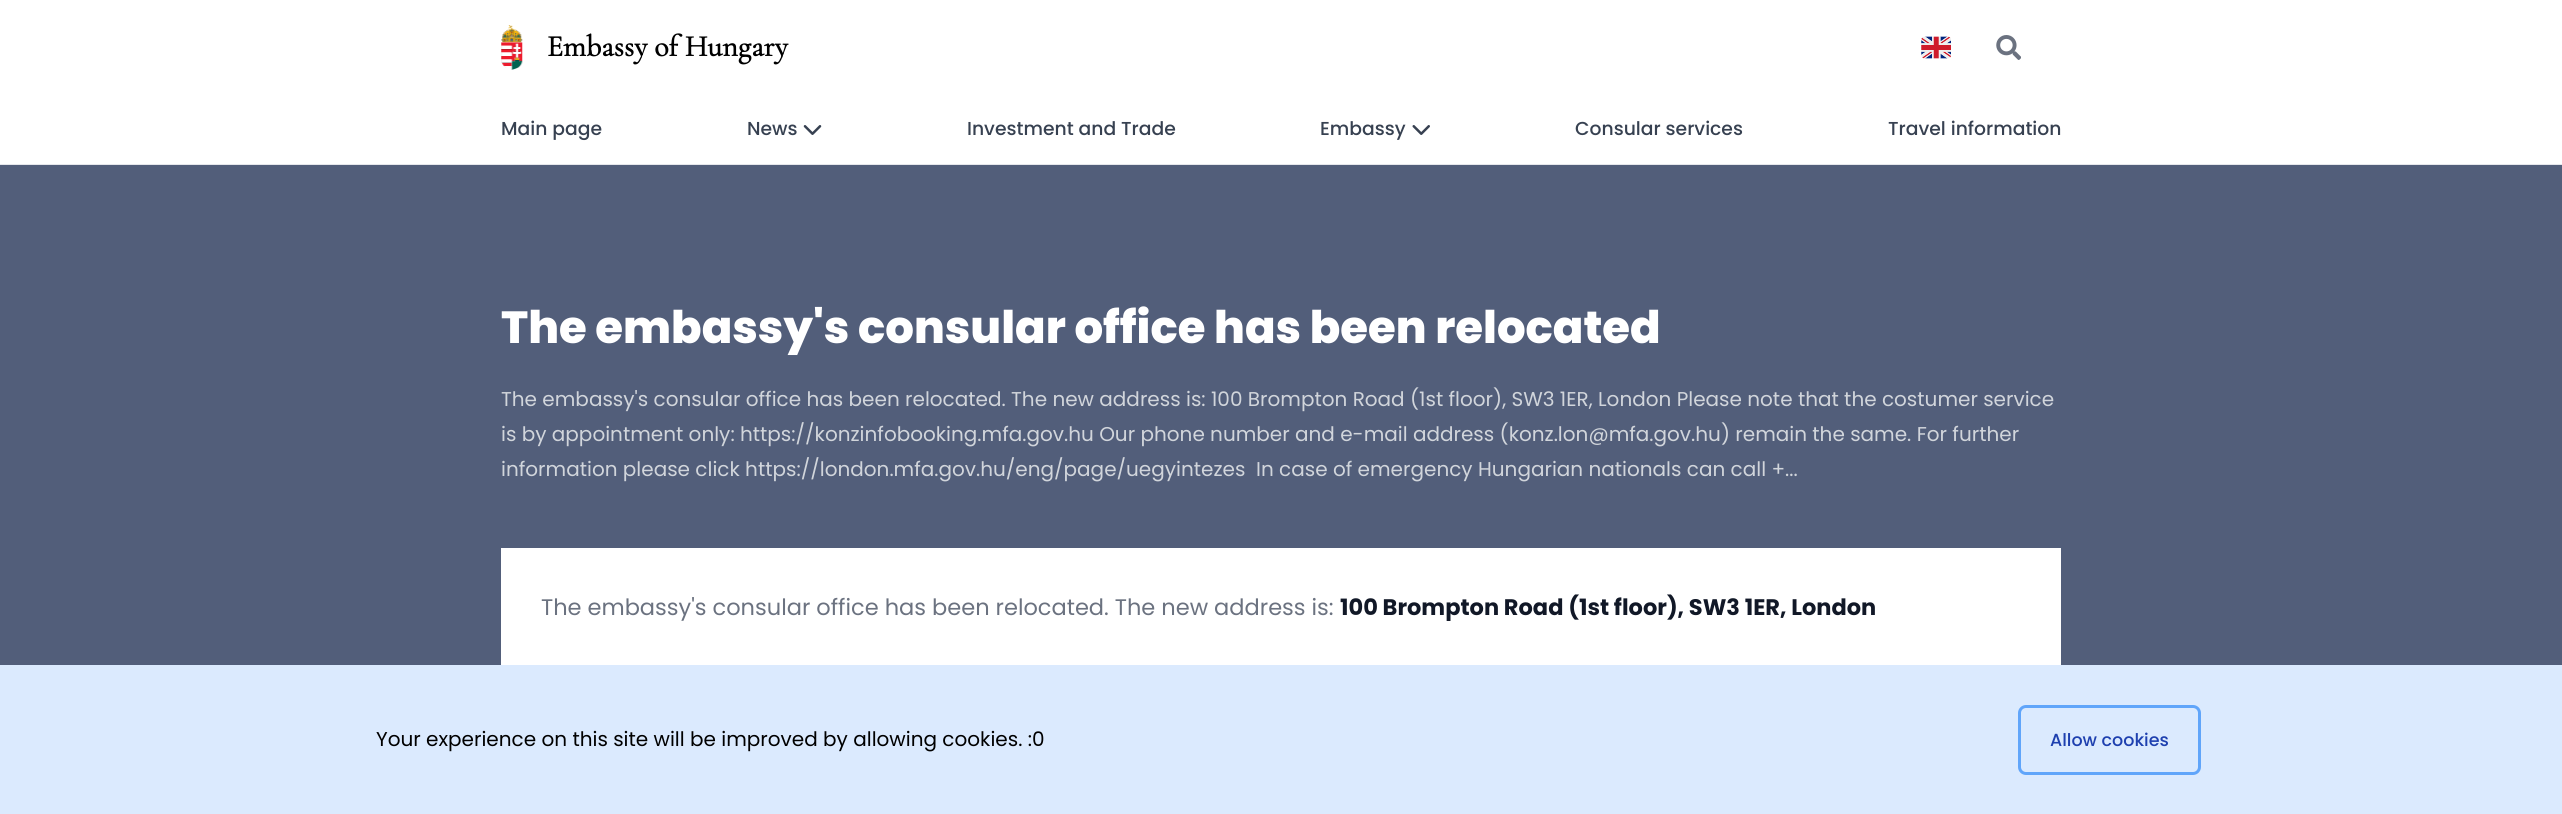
#include <cairo.h>
#include <math.h>
#include <stddef.h>

typedef struct { double x, y; const char *s; } line_t;

static void ink(cairo_t *ctx, unsigned color) {
    cairo_set_source_rgb(ctx, (color >> 16) / 255.0, (color >> 8 & 255) / 255.0, (color & 255) / 255.0);
}

static void round_path(cairo_t *ctx, double x, double y, double w, double h, double r) {
    cairo_new_sub_path(ctx);
    cairo_arc(ctx, x + w - r, y + h - r, r, 0, M_PI / 2);
    cairo_arc(ctx, x + r, y + h - r, r, M_PI / 2, M_PI);
    cairo_arc(ctx, x + r, y + r, r, M_PI, 1.5 * M_PI);
    cairo_arc(ctx, x + w - r, y + r, r, 1.5 * M_PI, 2 * M_PI);
    cairo_close_path(ctx);
}

static void paste(cairo_t *ctx, const char *path, double x, double y, double w, double h) {
    cairo_surface_t *image = cairo_image_surface_create_from_png(path);
    cairo_save(ctx);
    cairo_set_source_surface(ctx, image, x, y);
    cairo_rectangle(ctx, x, y, w, h);
    cairo_fill(ctx);
    cairo_restore(ctx);
    cairo_surface_destroy(image);
}

int main(void) {
    cairo_surface_t *surface = cairo_image_surface_create(CAIRO_FORMAT_RGB24, 2562, 814);
    cairo_t *ctx = cairo_create(surface);
    cairo_font_options_t *options = cairo_font_options_create();
    cairo_font_options_set_hint_metrics(options, CAIRO_HINT_METRICS_OFF);
    cairo_font_options_set_hint_style(options, CAIRO_HINT_STYLE_NONE);
    cairo_set_font_options(ctx, options);
    cairo_set_miter_limit(ctx, 4);
    ink(ctx, 0x525E7A);
    cairo_paint(ctx);
    ink(ctx, 0xFFFFFF);
    cairo_rectangle(ctx, 0, 0, 2562, 164);
    cairo_fill(ctx);
    ink(ctx, 0xE5E7EB);
    cairo_rectangle(ctx, 0, 164, 2562, 1);
    cairo_fill(ctx);
    paste(ctx, "media/1.png", 501, 25, 22, 45);
    cairo_select_font_face(ctx, "Cormorant Garamond", CAIRO_FONT_SLANT_NORMAL, CAIRO_FONT_WEIGHT_BOLD);
    cairo_set_font_size(ctx, 30);
    ink(ctx, 0x000000);
    cairo_move_to(ctx, 547, 56);
    cairo_show_text(ctx, "Embassy of Hungary");
    paste(ctx, "media/2.png", 1921, 36, 30, 23);
    paste(ctx, "media/3.png", 1996, 35, 25, 25);
    cairo_select_font_face(ctx, "Poppins Medium", CAIRO_FONT_SLANT_NORMAL, CAIRO_FONT_WEIGHT_NORMAL);
    cairo_set_font_size(ctx, 18.75);
    ink(ctx, 0x374151);
    cairo_move_to(ctx, 501, 135);
    cairo_show_text(ctx, "Main page");
    cairo_move_to(ctx, 747, 135);
    cairo_show_text(ctx, "News");
    paste(ctx, "media/4.png", 803, 125, 19, 10);
    cairo_move_to(ctx, 967, 135);
    cairo_show_text(ctx, "Investment and Trade");
    cairo_move_to(ctx, 1320, 135);
    cairo_show_text(ctx, "Embassy");
    paste(ctx, "media/5.png", 1412, 125, 18, 10);
    cairo_move_to(ctx, 1575, 135);
    cairo_show_text(ctx, "Consular services");
    cairo_move_to(ctx, 1888, 135);
    cairo_show_text(ctx, "Travel information");
    cairo_select_font_face(ctx, "Poppins ExtraBold", CAIRO_FONT_SLANT_NORMAL, CAIRO_FONT_WEIGHT_NORMAL);
    cairo_set_font_size(ctx, 45);
    ink(ctx, 0xFFFFFF);
    cairo_move_to(ctx, 501, 343);
    cairo_show_text(ctx, "The embassy's consular office has been relocated");
    cairo_select_font_face(ctx, "Poppins", CAIRO_FONT_SLANT_NORMAL, CAIRO_FONT_WEIGHT_NORMAL);
    cairo_set_font_size(ctx, 20);
    ink(ctx, 0xD1D5DB);
    {
        static const line_t items[] = {
            {501, 406, "The embassy's consular office has been relocated. The new address is: 100 Brompton Road (1st floor), SW3 1ER, London Please note that the costumer service"},
            {501, 441, "is by appointment only: https://konzinfobooking.mfa.gov.hu Our phone number and e-mail address (konz.lon@mfa.gov.hu) remain the same. For further"},
            {501, 476, "information please click https://london.mfa.gov.hu/eng/page/uegyintezes"},
            {1256, 476, "In case of emergency Hungarian nationals can call +..."},
        };
        for (size_t i = 0; i < sizeof items / sizeof *items; i++) {
            cairo_move_to(ctx, items[i].x, items[i].y);
            cairo_show_text(ctx, items[i].s);
        }
    }
    ink(ctx, 0xFFFFFF);
    cairo_rectangle(ctx, 501, 548, 1560, 117);
    cairo_fill(ctx);
    cairo_set_font_size(ctx, 22.5);
    ink(ctx, 0x6B7280);
    cairo_move_to(ctx, 541, 615);
    cairo_show_text(ctx, "The embassy's consular office has been relocated. The new address is:");
    cairo_select_font_face(ctx, "Poppins", CAIRO_FONT_SLANT_NORMAL, CAIRO_FONT_WEIGHT_BOLD);
    ink(ctx, 0x111827);
    cairo_move_to(ctx, 1340, 615);
    cairo_show_text(ctx, "100 Brompton Road (1st floor), SW3 1ER, London");
    ink(ctx, 0xDBEAFE);
    cairo_rectangle(ctx, 0, 665, 2562, 149);
    cairo_fill(ctx);
    cairo_select_font_face(ctx, "Poppins", CAIRO_FONT_SLANT_NORMAL, CAIRO_FONT_WEIGHT_NORMAL);
    cairo_set_font_size(ctx, 20);
    ink(ctx, 0x000000);
    cairo_move_to(ctx, 376, 746);
    cairo_show_text(ctx, "Your experience on this site will be improved by allowing cookies. :0");
    round_path(ctx, 2019.5, 706.5, 180, 67, 6.5);
    ink(ctx, 0x60A5FA);
    cairo_set_line_width(ctx, 3);
    cairo_stroke(ctx);
    cairo_select_font_face(ctx, "Poppins Medium", CAIRO_FONT_SLANT_NORMAL, CAIRO_FONT_WEIGHT_NORMAL);
    cairo_set_font_size(ctx, 17.5);
    ink(ctx, 0x1E40AF);
    cairo_move_to(ctx, 2050, 746);
    cairo_show_text(ctx, "Allow cookies");
    cairo_surface_write_to_png(surface, "image.png");
    cairo_font_options_destroy(options);
    cairo_destroy(ctx);
    cairo_surface_destroy(surface);
    return 0;
}
